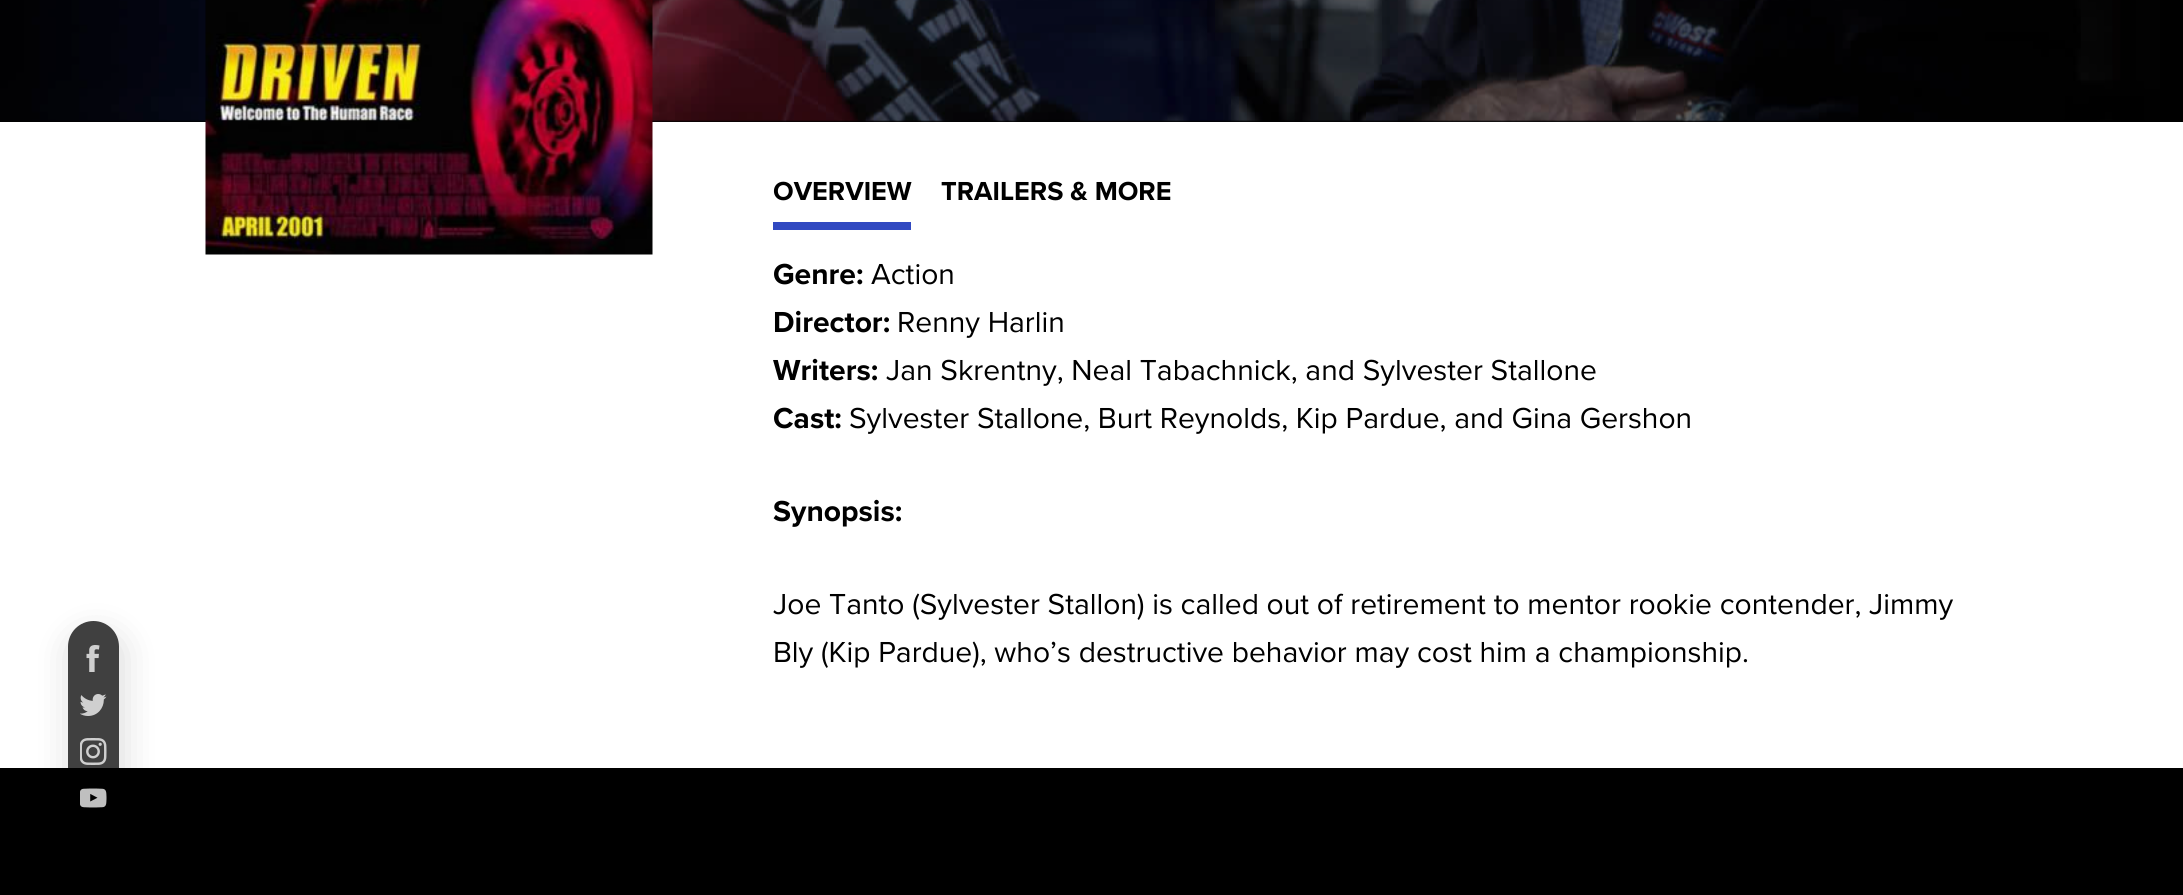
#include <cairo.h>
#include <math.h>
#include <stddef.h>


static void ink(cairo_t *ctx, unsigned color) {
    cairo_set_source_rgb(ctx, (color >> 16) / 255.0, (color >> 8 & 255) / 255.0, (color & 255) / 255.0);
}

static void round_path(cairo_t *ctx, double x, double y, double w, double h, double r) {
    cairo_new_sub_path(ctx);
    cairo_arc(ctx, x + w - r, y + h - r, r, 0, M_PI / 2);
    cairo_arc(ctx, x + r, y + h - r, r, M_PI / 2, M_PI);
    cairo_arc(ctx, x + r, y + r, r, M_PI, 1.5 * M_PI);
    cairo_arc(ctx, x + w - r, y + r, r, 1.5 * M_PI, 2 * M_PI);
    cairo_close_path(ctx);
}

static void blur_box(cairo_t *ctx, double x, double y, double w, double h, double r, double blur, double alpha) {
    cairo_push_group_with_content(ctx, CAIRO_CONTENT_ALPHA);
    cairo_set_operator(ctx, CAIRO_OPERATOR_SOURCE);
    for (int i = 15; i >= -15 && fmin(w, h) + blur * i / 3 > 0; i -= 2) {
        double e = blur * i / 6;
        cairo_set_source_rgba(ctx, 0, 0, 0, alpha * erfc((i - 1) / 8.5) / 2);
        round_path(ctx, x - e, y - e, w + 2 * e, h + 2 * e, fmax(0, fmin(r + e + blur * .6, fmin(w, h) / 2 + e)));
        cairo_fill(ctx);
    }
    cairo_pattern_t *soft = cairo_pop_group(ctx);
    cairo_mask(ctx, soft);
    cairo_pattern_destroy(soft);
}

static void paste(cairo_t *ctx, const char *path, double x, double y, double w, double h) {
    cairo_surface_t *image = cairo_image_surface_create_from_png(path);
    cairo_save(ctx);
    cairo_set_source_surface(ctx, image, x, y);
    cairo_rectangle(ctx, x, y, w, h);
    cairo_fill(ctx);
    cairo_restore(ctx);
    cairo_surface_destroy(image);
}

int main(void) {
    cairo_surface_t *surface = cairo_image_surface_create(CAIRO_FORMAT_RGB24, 2183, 895);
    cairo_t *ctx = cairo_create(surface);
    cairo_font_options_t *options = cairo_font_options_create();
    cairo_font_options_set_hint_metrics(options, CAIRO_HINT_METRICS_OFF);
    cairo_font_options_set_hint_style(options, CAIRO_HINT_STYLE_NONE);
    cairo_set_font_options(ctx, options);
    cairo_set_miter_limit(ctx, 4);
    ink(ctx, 0x000000);
    cairo_paint(ctx);
    paste(ctx, "media/1.png", 0, 0, 2160, 122);
    ink(ctx, 0xFFFFFF);
    cairo_rectangle(ctx, 0, 122, 2183, 646);
    cairo_fill(ctx);
    paste(ctx, "media/2.png", 205, 0, 448, 255);
    cairo_select_font_face(ctx, "Proxima Nova", CAIRO_FONT_SLANT_NORMAL, CAIRO_FONT_WEIGHT_BOLD);
    cairo_set_font_size(ctx, 27);
    ink(ctx, 0x000000);
    cairo_move_to(ctx, 773, 200);
    cairo_show_text(ctx, "OVERVIEW");
    ink(ctx, 0x3149C1);
    cairo_rectangle(ctx, 773, 222, 138, 8);
    cairo_fill(ctx);
    ink(ctx, 0x000000);
    cairo_move_to(ctx, 941, 200);
    cairo_show_text(ctx, "TRAILERS & MORE");
    cairo_set_font_size(ctx, 30);
    cairo_move_to(ctx, 773, 284);
    cairo_show_text(ctx, "Genre:");
    cairo_select_font_face(ctx, "Proxima Nova", CAIRO_FONT_SLANT_NORMAL, CAIRO_FONT_WEIGHT_NORMAL);
    cairo_move_to(ctx, 871, 284);
    cairo_show_text(ctx, "Action");
    cairo_select_font_face(ctx, "Proxima Nova", CAIRO_FONT_SLANT_NORMAL, CAIRO_FONT_WEIGHT_BOLD);
    cairo_move_to(ctx, 773, 332);
    cairo_show_text(ctx, "Director:");
    cairo_select_font_face(ctx, "Proxima Nova", CAIRO_FONT_SLANT_NORMAL, CAIRO_FONT_WEIGHT_NORMAL);
    cairo_move_to(ctx, 897, 332);
    cairo_show_text(ctx, "Renny Harlin");
    cairo_select_font_face(ctx, "Proxima Nova", CAIRO_FONT_SLANT_NORMAL, CAIRO_FONT_WEIGHT_BOLD);
    cairo_move_to(ctx, 773, 380);
    cairo_show_text(ctx, "Writers:");
    cairo_select_font_face(ctx, "Proxima Nova", CAIRO_FONT_SLANT_NORMAL, CAIRO_FONT_WEIGHT_NORMAL);
    cairo_move_to(ctx, 886, 380);
    cairo_show_text(ctx, "Jan Skrentny, Neal Tabachnick, and Sylvester Stallone");
    cairo_select_font_face(ctx, "Proxima Nova", CAIRO_FONT_SLANT_NORMAL, CAIRO_FONT_WEIGHT_BOLD);
    cairo_move_to(ctx, 773, 428);
    cairo_show_text(ctx, "Cast:");
    cairo_select_font_face(ctx, "Proxima Nova", CAIRO_FONT_SLANT_NORMAL, CAIRO_FONT_WEIGHT_NORMAL);
    cairo_move_to(ctx, 849, 428);
    cairo_show_text(ctx, "Sylvester Stallone, Burt Reynolds, Kip Pardue, and Gina Gershon");
    cairo_select_font_face(ctx, "Proxima Nova", CAIRO_FONT_SLANT_NORMAL, CAIRO_FONT_WEIGHT_BOLD);
    cairo_move_to(ctx, 773, 521);
    cairo_show_text(ctx, "Synopsis:");
    cairo_select_font_face(ctx, "Proxima Nova", CAIRO_FONT_SLANT_NORMAL, CAIRO_FONT_WEIGHT_NORMAL);
    cairo_move_to(ctx, 773, 614);
    cairo_show_text(ctx, "Joe Tanto (Sylvester Stallon) is called out of retirement to mentor rookie contender, Jimmy");
    cairo_move_to(ctx, 773, 662);
    cairo_show_text(ctx, "Bly (Kip Pardue), who’s destructive behavior may cost him a championship.");
    cairo_save(ctx);
    cairo_set_fill_rule(ctx, CAIRO_FILL_RULE_EVEN_ODD);
    cairo_new_path(ctx);
    cairo_move_to(ctx, 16, 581);
    cairo_line_to(ctx, 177, 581);
    cairo_line_to(ctx, 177, 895);
    cairo_line_to(ctx, 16, 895);
    cairo_close_path(ctx);
    cairo_move_to(ctx, 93.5, 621);
    cairo_curve_to(ctx, 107.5, 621, 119, 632.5, 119, 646.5);
    cairo_line_to(ctx, 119, 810.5);
    cairo_curve_to(ctx, 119, 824.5, 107.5, 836, 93.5, 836);
    cairo_curve_to(ctx, 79.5, 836, 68, 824.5, 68, 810.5);
    cairo_line_to(ctx, 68, 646.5);
    cairo_curve_to(ctx, 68, 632.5, 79.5, 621, 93.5, 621);
    cairo_close_path(ctx);
    cairo_clip(ctx);
    ink(ctx, 0x000000);
    blur_box(ctx, 71, 636, 51, 215, 25.5, 18, 0.15);
    cairo_restore(ctx);
    cairo_set_source_rgba(ctx, 0, 0, 0, 0.75);
    round_path(ctx, 68, 621, 51, 215, 25.5);
    cairo_fill(ctx);
    paste(ctx, "media/3.png", 86, 645, 14, 27);
    paste(ctx, "media/4.png", 80, 694, 27, 22);
    paste(ctx, "media/5.png", 80, 738, 27, 27);
    paste(ctx, "media/6.png", 80, 788, 27, 20);
    cairo_surface_write_to_png(surface, "image.png");
    cairo_font_options_destroy(options);
    cairo_destroy(ctx);
    cairo_surface_destroy(surface);
    return 0;
}
